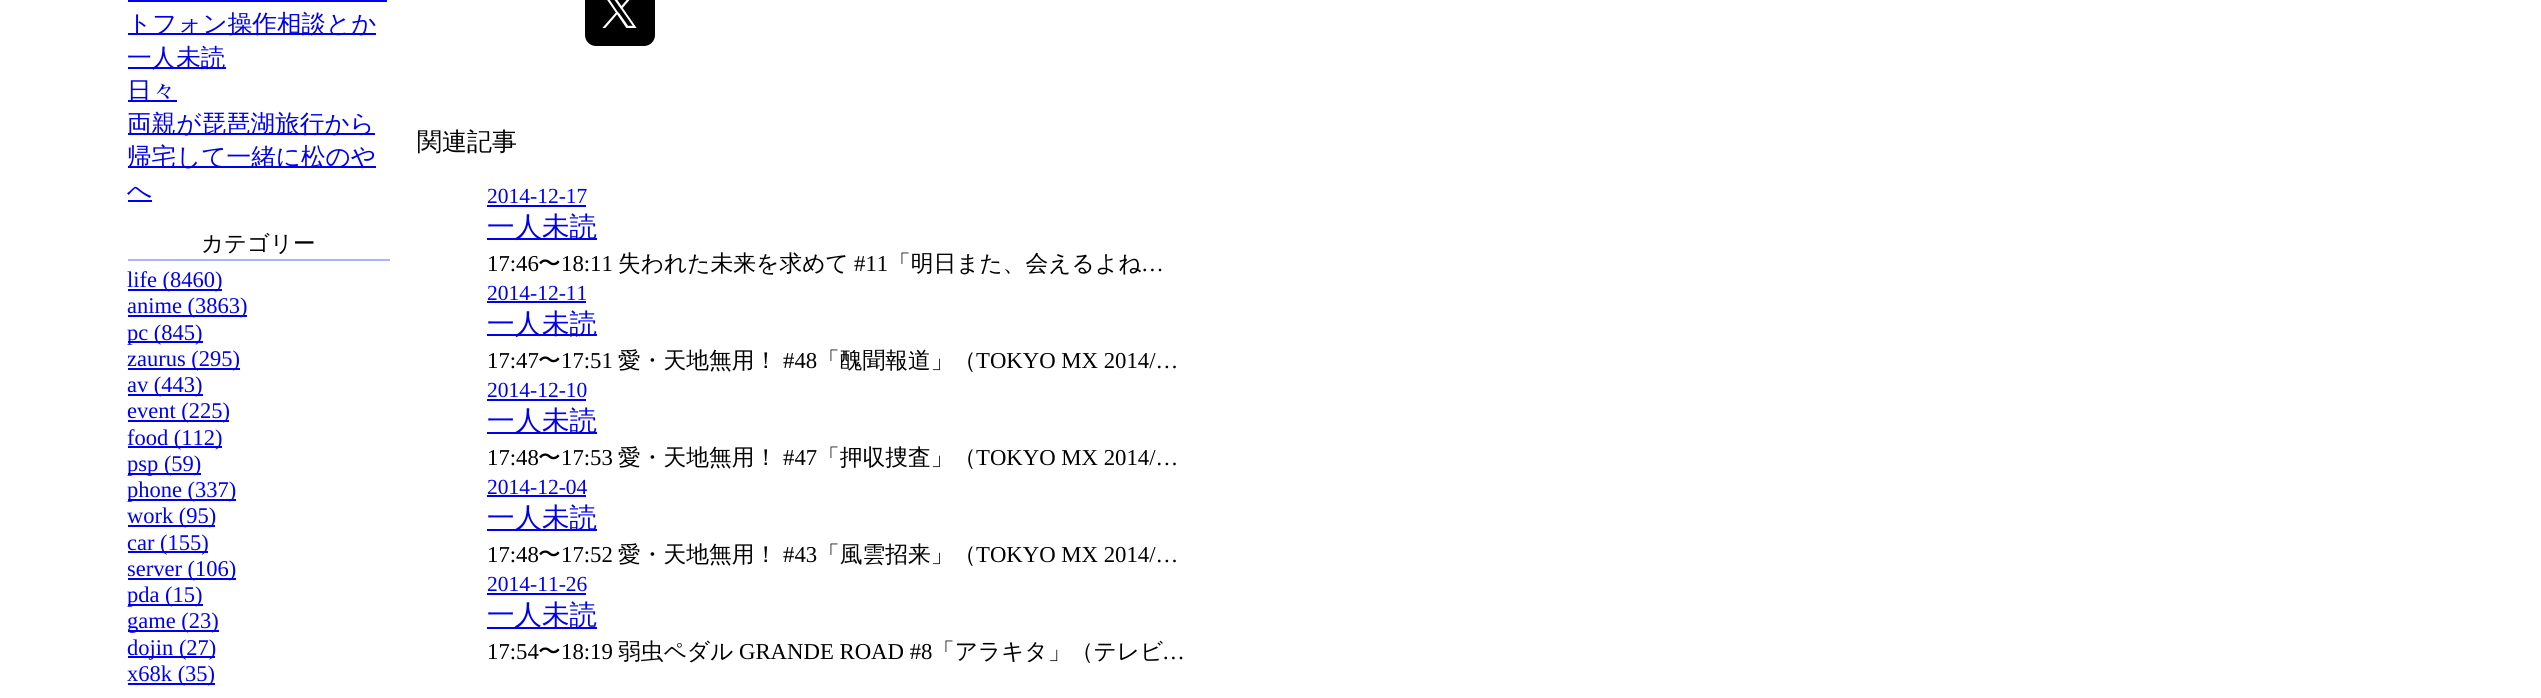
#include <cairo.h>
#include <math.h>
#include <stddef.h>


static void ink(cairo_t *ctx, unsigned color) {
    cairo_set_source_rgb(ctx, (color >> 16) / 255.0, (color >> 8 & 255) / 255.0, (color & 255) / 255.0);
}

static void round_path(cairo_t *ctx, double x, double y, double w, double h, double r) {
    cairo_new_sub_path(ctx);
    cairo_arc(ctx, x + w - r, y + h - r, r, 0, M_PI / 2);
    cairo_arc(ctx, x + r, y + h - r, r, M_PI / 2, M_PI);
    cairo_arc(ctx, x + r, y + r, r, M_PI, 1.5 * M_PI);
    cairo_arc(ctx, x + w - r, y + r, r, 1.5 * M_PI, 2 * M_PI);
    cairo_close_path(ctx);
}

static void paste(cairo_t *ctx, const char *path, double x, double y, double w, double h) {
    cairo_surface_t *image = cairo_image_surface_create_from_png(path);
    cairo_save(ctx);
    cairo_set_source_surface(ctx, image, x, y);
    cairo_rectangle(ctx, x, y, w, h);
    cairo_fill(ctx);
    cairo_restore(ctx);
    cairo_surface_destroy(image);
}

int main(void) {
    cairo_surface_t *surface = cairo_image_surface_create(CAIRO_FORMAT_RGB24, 2541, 698);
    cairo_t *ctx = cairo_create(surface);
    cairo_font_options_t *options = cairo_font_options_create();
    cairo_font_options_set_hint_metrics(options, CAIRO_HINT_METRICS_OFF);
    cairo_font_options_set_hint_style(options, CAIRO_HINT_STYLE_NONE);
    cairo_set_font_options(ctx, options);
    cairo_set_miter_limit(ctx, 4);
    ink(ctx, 0xFFFFFF);
    cairo_paint(ctx);
    ink(ctx, 0x0000EE);
    cairo_rectangle(ctx, 128, 33, 248, 2);
    cairo_fill(ctx);
    cairo_select_font_face(ctx, "WenQuanYi Zen Hei Medium", CAIRO_FONT_SLANT_NORMAL, CAIRO_FONT_WEIGHT_NORMAL);
    cairo_set_font_size(ctx, 24.6);
    cairo_move_to(ctx, 127, 32);
    cairo_show_text(ctx, "トフォン操作相談とか");
    cairo_rectangle(ctx, 128, 0, 259, 2);
    cairo_fill(ctx);
    cairo_rectangle(ctx, 128, 67, 98, 2);
    cairo_fill(ctx);
    cairo_move_to(ctx, 127, 66);
    cairo_show_text(ctx, "一人未読");
    cairo_rectangle(ctx, 128, 100, 49, 2);
    cairo_fill(ctx);
    cairo_move_to(ctx, 127, 99);
    cairo_show_text(ctx, "日々");
    cairo_rectangle(ctx, 128, 133, 247, 2);
    cairo_fill(ctx);
    cairo_move_to(ctx, 127, 132);
    cairo_show_text(ctx, "両親が琵琶湖旅行から");
    cairo_rectangle(ctx, 128, 166, 248, 2);
    cairo_fill(ctx);
    cairo_move_to(ctx, 127, 165);
    cairo_show_text(ctx, "帰宅して一緒に松のや");
    cairo_move_to(ctx, 127, 199);
    cairo_show_text(ctx, "へ");
    cairo_rectangle(ctx, 128, 200, 24, 2);
    cairo_fill(ctx);
    ink(ctx, 0xADB2FF);
    cairo_rectangle(ctx, 128, 259, 262, 2);
    cairo_fill(ctx);
    cairo_set_font_size(ctx, 22.5);
    ink(ctx, 0x000000);
    cairo_move_to(ctx, 201, 251);
    cairo_show_text(ctx, "カテゴリー");
    ink(ctx, 0x0000EE);
    cairo_rectangle(ctx, 128, 289, 94, 2);
    cairo_fill(ctx);
    cairo_select_font_face(ctx, "Liberation Serif", CAIRO_FONT_SLANT_NORMAL, CAIRO_FONT_WEIGHT_NORMAL);
    cairo_move_to(ctx, 127, 287);
    cairo_show_text(ctx, "life (8460)");
    cairo_rectangle(ctx, 128, 315, 119, 2);
    cairo_fill(ctx);
    cairo_move_to(ctx, 127, 313);
    cairo_show_text(ctx, "anime (3863)");
    cairo_rectangle(ctx, 128, 341, 75, 2);
    cairo_fill(ctx);
    cairo_move_to(ctx, 127, 340);
    cairo_show_text(ctx, "pc (845)");
    cairo_rectangle(ctx, 128, 368, 112, 2);
    cairo_fill(ctx);
    cairo_move_to(ctx, 127, 366);
    cairo_show_text(ctx, "zaurus (295)");
    cairo_rectangle(ctx, 128, 394, 75, 2);
    cairo_fill(ctx);
    cairo_move_to(ctx, 127, 392);
    cairo_show_text(ctx, "av (443)");
    cairo_rectangle(ctx, 128, 420, 101, 2);
    cairo_fill(ctx);
    cairo_move_to(ctx, 127, 418);
    cairo_show_text(ctx, "event (225)");
    cairo_rectangle(ctx, 128, 446, 94, 2);
    cairo_fill(ctx);
    cairo_move_to(ctx, 127, 445);
    cairo_show_text(ctx, "food (112)");
    cairo_rectangle(ctx, 128, 473, 73, 2);
    cairo_fill(ctx);
    cairo_move_to(ctx, 127, 471);
    cairo_show_text(ctx, "psp (59)");
    cairo_rectangle(ctx, 128, 499, 108, 2);
    cairo_fill(ctx);
    cairo_move_to(ctx, 127, 497);
    cairo_show_text(ctx, "phone (337)");
    cairo_rectangle(ctx, 128, 525, 87, 2);
    cairo_fill(ctx);
    cairo_move_to(ctx, 127, 523);
    cairo_show_text(ctx, "work (95)");
    cairo_rectangle(ctx, 128, 551, 80, 2);
    cairo_fill(ctx);
    cairo_move_to(ctx, 127, 550);
    cairo_show_text(ctx, "car (155)");
    cairo_rectangle(ctx, 128, 578, 108, 2);
    cairo_fill(ctx);
    cairo_move_to(ctx, 127, 576);
    cairo_show_text(ctx, "server (106)");
    cairo_rectangle(ctx, 128, 604, 75, 2);
    cairo_fill(ctx);
    cairo_move_to(ctx, 127, 602);
    cairo_show_text(ctx, "pda (15)");
    cairo_rectangle(ctx, 128, 630, 91, 2);
    cairo_fill(ctx);
    cairo_move_to(ctx, 127, 628);
    cairo_show_text(ctx, "game (23)");
    cairo_rectangle(ctx, 128, 656, 87, 2);
    cairo_fill(ctx);
    cairo_move_to(ctx, 127, 655);
    cairo_show_text(ctx, "dojin (27)");
    cairo_rectangle(ctx, 128, 683, 87, 2);
    cairo_fill(ctx);
    cairo_move_to(ctx, 127, 681);
    cairo_show_text(ctx, "x68k (35)");
    ink(ctx, 0x000000);
    round_path(ctx, 585, -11, 70, 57, 11);
    cairo_fill(ctx);
    paste(ctx, "media/1.png", 602, 0, 35, 28);
    cairo_select_font_face(ctx, "WenQuanYi Zen Hei Medium", CAIRO_FONT_SLANT_NORMAL, CAIRO_FONT_WEIGHT_NORMAL);
    cairo_set_font_size(ctx, 25);
    cairo_move_to(ctx, 417, 150);
    cairo_show_text(ctx, "関連記事");
    cairo_select_font_face(ctx, "Liberation Serif", CAIRO_FONT_SLANT_NORMAL, CAIRO_FONT_WEIGHT_NORMAL);
    cairo_set_font_size(ctx, 21.5);
    ink(ctx, 0x0000EE);
    cairo_move_to(ctx, 487, 203);
    cairo_show_text(ctx, "2014-12-17");
    cairo_rectangle(ctx, 487, 205, 99, 2);
    cairo_fill(ctx);
    cairo_rectangle(ctx, 487, 238, 110, 2);
    cairo_fill(ctx);
    cairo_select_font_face(ctx, "WenQuanYi Zen Hei Medium", CAIRO_FONT_SLANT_NORMAL, CAIRO_FONT_WEIGHT_NORMAL);
    cairo_set_font_size(ctx, 27.5);
    cairo_move_to(ctx, 487, 236);
    cairo_show_text(ctx, "一人未読");
    cairo_select_font_face(ctx, "Liberation Serif", CAIRO_FONT_SLANT_NORMAL, CAIRO_FONT_WEIGHT_NORMAL);
    cairo_set_font_size(ctx, 22.75);
    ink(ctx, 0x000000);
    cairo_move_to(ctx, 487, 271);
    cairo_show_text(ctx, "17:46");
    cairo_select_font_face(ctx, "WenQuanYi Zen Hei Medium", CAIRO_FONT_SLANT_NORMAL, CAIRO_FONT_WEIGHT_NORMAL);
    cairo_move_to(ctx, 538, 271);
    cairo_show_text(ctx, "〜");
    cairo_select_font_face(ctx, "Liberation Serif", CAIRO_FONT_SLANT_NORMAL, CAIRO_FONT_WEIGHT_NORMAL);
    cairo_move_to(ctx, 561, 271);
    cairo_show_text(ctx, "18:11");
    cairo_select_font_face(ctx, "WenQuanYi Zen Hei Medium", CAIRO_FONT_SLANT_NORMAL, CAIRO_FONT_WEIGHT_NORMAL);
    cairo_move_to(ctx, 618, 271);
    cairo_show_text(ctx, "失われた未来を求めて");
    cairo_select_font_face(ctx, "Liberation Serif", CAIRO_FONT_SLANT_NORMAL, CAIRO_FONT_WEIGHT_NORMAL);
    cairo_move_to(ctx, 854, 271);
    cairo_show_text(ctx, "#11");
    cairo_select_font_face(ctx, "WenQuanYi Zen Hei Medium", CAIRO_FONT_SLANT_NORMAL, CAIRO_FONT_WEIGHT_NORMAL);
    cairo_move_to(ctx, 888, 271);
    cairo_show_text(ctx, "「明日また、会えるよね");
    cairo_select_font_face(ctx, "Liberation Serif", CAIRO_FONT_SLANT_NORMAL, CAIRO_FONT_WEIGHT_NORMAL);
    cairo_move_to(ctx, 1141, 271);
    cairo_show_text(ctx, "…");
    cairo_set_font_size(ctx, 21.5);
    ink(ctx, 0x0000EE);
    cairo_move_to(ctx, 487, 300);
    cairo_show_text(ctx, "2014-12-11");
    cairo_rectangle(ctx, 487, 301, 99, 2);
    cairo_fill(ctx);
    cairo_rectangle(ctx, 487, 334, 110, 2);
    cairo_fill(ctx);
    cairo_select_font_face(ctx, "WenQuanYi Zen Hei Medium", CAIRO_FONT_SLANT_NORMAL, CAIRO_FONT_WEIGHT_NORMAL);
    cairo_set_font_size(ctx, 27.5);
    cairo_move_to(ctx, 487, 333);
    cairo_show_text(ctx, "一人未読");
    cairo_select_font_face(ctx, "Liberation Serif", CAIRO_FONT_SLANT_NORMAL, CAIRO_FONT_WEIGHT_NORMAL);
    cairo_set_font_size(ctx, 22.75);
    ink(ctx, 0x000000);
    cairo_move_to(ctx, 487, 368);
    cairo_show_text(ctx, "17:47");
    cairo_select_font_face(ctx, "WenQuanYi Zen Hei Medium", CAIRO_FONT_SLANT_NORMAL, CAIRO_FONT_WEIGHT_NORMAL);
    cairo_move_to(ctx, 538, 368);
    cairo_show_text(ctx, "〜");
    cairo_select_font_face(ctx, "Liberation Serif", CAIRO_FONT_SLANT_NORMAL, CAIRO_FONT_WEIGHT_NORMAL);
    cairo_move_to(ctx, 561, 368);
    cairo_show_text(ctx, "17:51");
    cairo_select_font_face(ctx, "WenQuanYi Zen Hei Medium", CAIRO_FONT_SLANT_NORMAL, CAIRO_FONT_WEIGHT_NORMAL);
    cairo_move_to(ctx, 618, 368);
    cairo_show_text(ctx, "愛・天地無用！");
    cairo_select_font_face(ctx, "Liberation Serif", CAIRO_FONT_SLANT_NORMAL, CAIRO_FONT_WEIGHT_NORMAL);
    cairo_move_to(ctx, 783, 368);
    cairo_show_text(ctx, "#48");
    cairo_select_font_face(ctx, "WenQuanYi Zen Hei Medium", CAIRO_FONT_SLANT_NORMAL, CAIRO_FONT_WEIGHT_NORMAL);
    cairo_move_to(ctx, 817, 368);
    cairo_show_text(ctx, "「醜聞報道」（");
    cairo_select_font_face(ctx, "Liberation Serif", CAIRO_FONT_SLANT_NORMAL, CAIRO_FONT_WEIGHT_NORMAL);
    cairo_move_to(ctx, 976, 368);
    cairo_show_text(ctx, "TOKYO MX 2014/…");
    cairo_set_font_size(ctx, 21.5);
    ink(ctx, 0x0000EE);
    cairo_move_to(ctx, 487, 397);
    cairo_show_text(ctx, "2014-12-10");
    cairo_rectangle(ctx, 487, 399, 99, 2);
    cairo_fill(ctx);
    cairo_rectangle(ctx, 487, 432, 110, 2);
    cairo_fill(ctx);
    cairo_select_font_face(ctx, "WenQuanYi Zen Hei Medium", CAIRO_FONT_SLANT_NORMAL, CAIRO_FONT_WEIGHT_NORMAL);
    cairo_set_font_size(ctx, 27.5);
    cairo_move_to(ctx, 487, 430);
    cairo_show_text(ctx, "一人未読");
    cairo_select_font_face(ctx, "Liberation Serif", CAIRO_FONT_SLANT_NORMAL, CAIRO_FONT_WEIGHT_NORMAL);
    cairo_set_font_size(ctx, 22.75);
    ink(ctx, 0x000000);
    cairo_move_to(ctx, 487, 465);
    cairo_show_text(ctx, "17:48");
    cairo_select_font_face(ctx, "WenQuanYi Zen Hei Medium", CAIRO_FONT_SLANT_NORMAL, CAIRO_FONT_WEIGHT_NORMAL);
    cairo_move_to(ctx, 538, 465);
    cairo_show_text(ctx, "〜");
    cairo_select_font_face(ctx, "Liberation Serif", CAIRO_FONT_SLANT_NORMAL, CAIRO_FONT_WEIGHT_NORMAL);
    cairo_move_to(ctx, 561, 465);
    cairo_show_text(ctx, "17:53");
    cairo_select_font_face(ctx, "WenQuanYi Zen Hei Medium", CAIRO_FONT_SLANT_NORMAL, CAIRO_FONT_WEIGHT_NORMAL);
    cairo_move_to(ctx, 618, 465);
    cairo_show_text(ctx, "愛・天地無用！");
    cairo_select_font_face(ctx, "Liberation Serif", CAIRO_FONT_SLANT_NORMAL, CAIRO_FONT_WEIGHT_NORMAL);
    cairo_move_to(ctx, 783, 465);
    cairo_show_text(ctx, "#47");
    cairo_select_font_face(ctx, "WenQuanYi Zen Hei Medium", CAIRO_FONT_SLANT_NORMAL, CAIRO_FONT_WEIGHT_NORMAL);
    cairo_move_to(ctx, 817, 465);
    cairo_show_text(ctx, "「押収捜査」（");
    cairo_select_font_face(ctx, "Liberation Serif", CAIRO_FONT_SLANT_NORMAL, CAIRO_FONT_WEIGHT_NORMAL);
    cairo_move_to(ctx, 976, 465);
    cairo_show_text(ctx, "TOKYO MX 2014/…");
    cairo_set_font_size(ctx, 21.5);
    ink(ctx, 0x0000EE);
    cairo_move_to(ctx, 487, 494);
    cairo_show_text(ctx, "2014-12-04");
    cairo_rectangle(ctx, 487, 495, 99, 2);
    cairo_fill(ctx);
    cairo_rectangle(ctx, 487, 529, 110, 2);
    cairo_fill(ctx);
    cairo_select_font_face(ctx, "WenQuanYi Zen Hei Medium", CAIRO_FONT_SLANT_NORMAL, CAIRO_FONT_WEIGHT_NORMAL);
    cairo_set_font_size(ctx, 27.5);
    cairo_move_to(ctx, 487, 527);
    cairo_show_text(ctx, "一人未読");
    cairo_select_font_face(ctx, "Liberation Serif", CAIRO_FONT_SLANT_NORMAL, CAIRO_FONT_WEIGHT_NORMAL);
    cairo_set_font_size(ctx, 22.75);
    ink(ctx, 0x000000);
    cairo_move_to(ctx, 487, 562);
    cairo_show_text(ctx, "17:48");
    cairo_select_font_face(ctx, "WenQuanYi Zen Hei Medium", CAIRO_FONT_SLANT_NORMAL, CAIRO_FONT_WEIGHT_NORMAL);
    cairo_move_to(ctx, 538, 562);
    cairo_show_text(ctx, "〜");
    cairo_select_font_face(ctx, "Liberation Serif", CAIRO_FONT_SLANT_NORMAL, CAIRO_FONT_WEIGHT_NORMAL);
    cairo_move_to(ctx, 561, 562);
    cairo_show_text(ctx, "17:52");
    cairo_select_font_face(ctx, "WenQuanYi Zen Hei Medium", CAIRO_FONT_SLANT_NORMAL, CAIRO_FONT_WEIGHT_NORMAL);
    cairo_move_to(ctx, 618, 562);
    cairo_show_text(ctx, "愛・天地無用！");
    cairo_select_font_face(ctx, "Liberation Serif", CAIRO_FONT_SLANT_NORMAL, CAIRO_FONT_WEIGHT_NORMAL);
    cairo_move_to(ctx, 783, 562);
    cairo_show_text(ctx, "#43");
    cairo_select_font_face(ctx, "WenQuanYi Zen Hei Medium", CAIRO_FONT_SLANT_NORMAL, CAIRO_FONT_WEIGHT_NORMAL);
    cairo_move_to(ctx, 817, 562);
    cairo_show_text(ctx, "「風雲招来」（");
    cairo_select_font_face(ctx, "Liberation Serif", CAIRO_FONT_SLANT_NORMAL, CAIRO_FONT_WEIGHT_NORMAL);
    cairo_move_to(ctx, 976, 562);
    cairo_show_text(ctx, "TOKYO MX 2014/…");
    cairo_set_font_size(ctx, 21.5);
    ink(ctx, 0x0000EE);
    cairo_move_to(ctx, 487, 591);
    cairo_show_text(ctx, "2014-11-26");
    cairo_rectangle(ctx, 487, 593, 99, 2);
    cairo_fill(ctx);
    cairo_rectangle(ctx, 487, 627, 110, 2);
    cairo_fill(ctx);
    cairo_select_font_face(ctx, "WenQuanYi Zen Hei Medium", CAIRO_FONT_SLANT_NORMAL, CAIRO_FONT_WEIGHT_NORMAL);
    cairo_set_font_size(ctx, 27.5);
    cairo_move_to(ctx, 487, 624);
    cairo_show_text(ctx, "一人未読");
    cairo_select_font_face(ctx, "Liberation Serif", CAIRO_FONT_SLANT_NORMAL, CAIRO_FONT_WEIGHT_NORMAL);
    cairo_set_font_size(ctx, 22.75);
    ink(ctx, 0x000000);
    cairo_move_to(ctx, 487, 659);
    cairo_show_text(ctx, "17:54");
    cairo_select_font_face(ctx, "WenQuanYi Zen Hei Medium", CAIRO_FONT_SLANT_NORMAL, CAIRO_FONT_WEIGHT_NORMAL);
    cairo_move_to(ctx, 538, 659);
    cairo_show_text(ctx, "〜");
    cairo_select_font_face(ctx, "Liberation Serif", CAIRO_FONT_SLANT_NORMAL, CAIRO_FONT_WEIGHT_NORMAL);
    cairo_move_to(ctx, 561, 659);
    cairo_show_text(ctx, "18:19");
    cairo_select_font_face(ctx, "WenQuanYi Zen Hei Medium", CAIRO_FONT_SLANT_NORMAL, CAIRO_FONT_WEIGHT_NORMAL);
    cairo_move_to(ctx, 618, 659);
    cairo_show_text(ctx, "弱虫ペダル");
    cairo_select_font_face(ctx, "Liberation Serif", CAIRO_FONT_SLANT_NORMAL, CAIRO_FONT_WEIGHT_NORMAL);
    cairo_move_to(ctx, 739, 659);
    cairo_show_text(ctx, "GRANDE ROAD #8");
    cairo_select_font_face(ctx, "WenQuanYi Zen Hei Medium", CAIRO_FONT_SLANT_NORMAL, CAIRO_FONT_WEIGHT_NORMAL);
    cairo_move_to(ctx, 932, 659);
    cairo_show_text(ctx, "「アラキタ」（テレビ");
    cairo_select_font_face(ctx, "Liberation Serif", CAIRO_FONT_SLANT_NORMAL, CAIRO_FONT_WEIGHT_NORMAL);
    cairo_move_to(ctx, 1162, 659);
    cairo_show_text(ctx, "…");
    cairo_surface_write_to_png(surface, "image.png");
    cairo_font_options_destroy(options);
    cairo_destroy(ctx);
    cairo_surface_destroy(surface);
    return 0;
}
